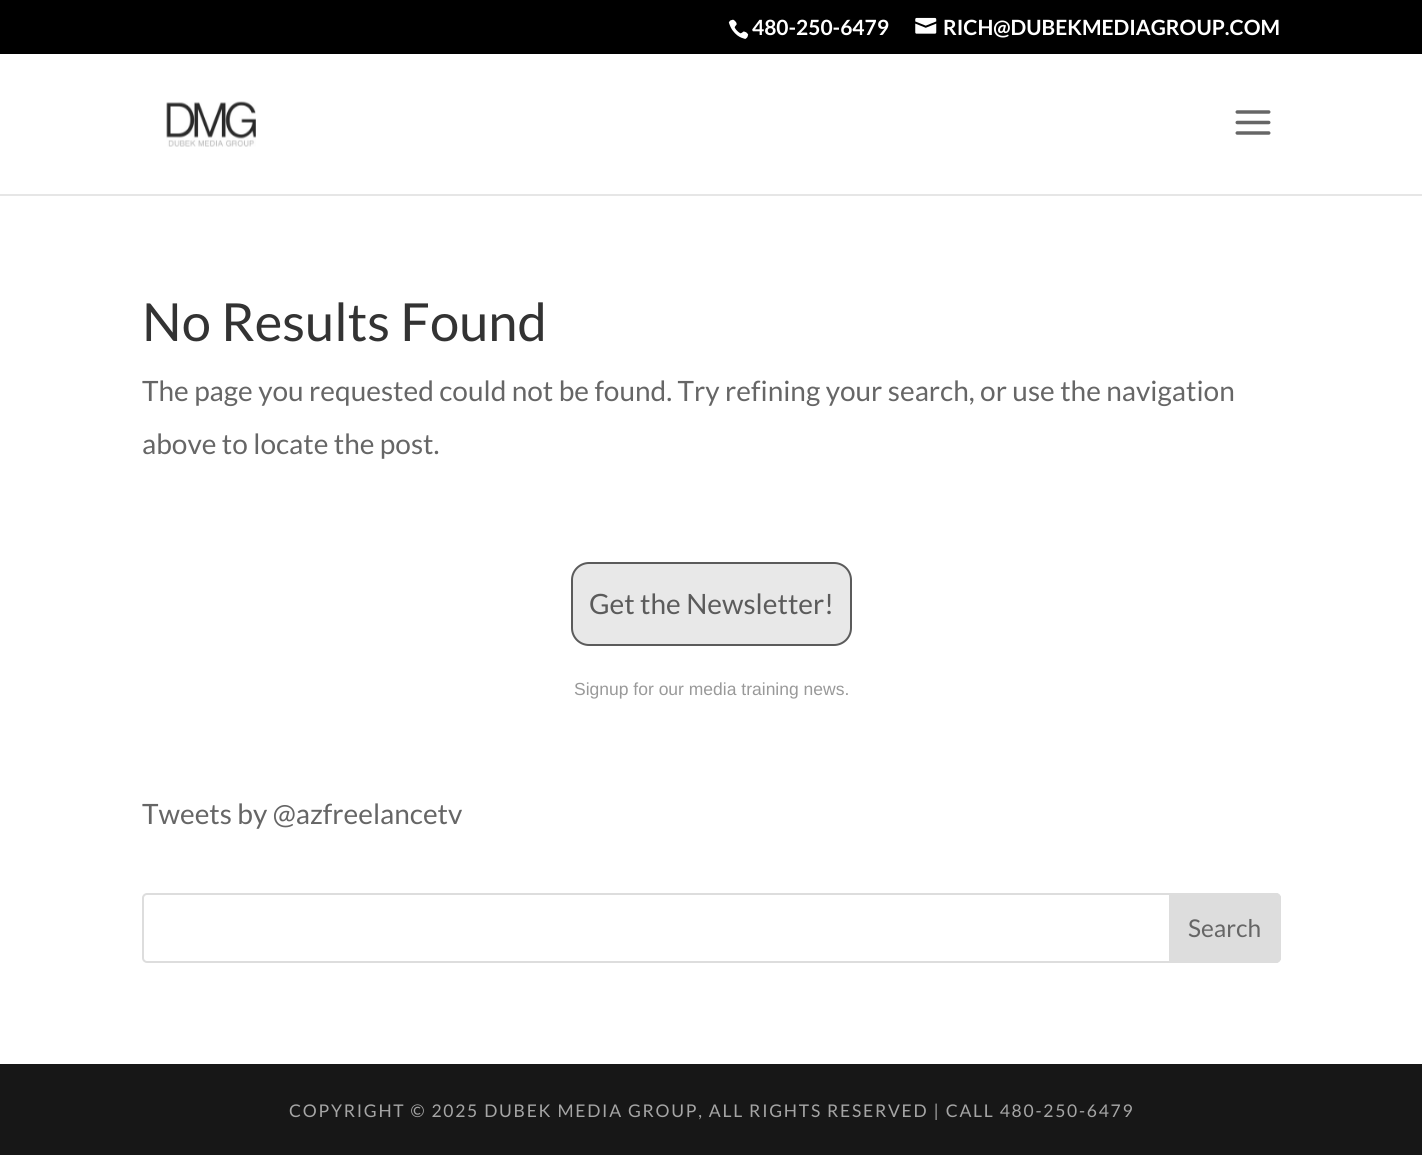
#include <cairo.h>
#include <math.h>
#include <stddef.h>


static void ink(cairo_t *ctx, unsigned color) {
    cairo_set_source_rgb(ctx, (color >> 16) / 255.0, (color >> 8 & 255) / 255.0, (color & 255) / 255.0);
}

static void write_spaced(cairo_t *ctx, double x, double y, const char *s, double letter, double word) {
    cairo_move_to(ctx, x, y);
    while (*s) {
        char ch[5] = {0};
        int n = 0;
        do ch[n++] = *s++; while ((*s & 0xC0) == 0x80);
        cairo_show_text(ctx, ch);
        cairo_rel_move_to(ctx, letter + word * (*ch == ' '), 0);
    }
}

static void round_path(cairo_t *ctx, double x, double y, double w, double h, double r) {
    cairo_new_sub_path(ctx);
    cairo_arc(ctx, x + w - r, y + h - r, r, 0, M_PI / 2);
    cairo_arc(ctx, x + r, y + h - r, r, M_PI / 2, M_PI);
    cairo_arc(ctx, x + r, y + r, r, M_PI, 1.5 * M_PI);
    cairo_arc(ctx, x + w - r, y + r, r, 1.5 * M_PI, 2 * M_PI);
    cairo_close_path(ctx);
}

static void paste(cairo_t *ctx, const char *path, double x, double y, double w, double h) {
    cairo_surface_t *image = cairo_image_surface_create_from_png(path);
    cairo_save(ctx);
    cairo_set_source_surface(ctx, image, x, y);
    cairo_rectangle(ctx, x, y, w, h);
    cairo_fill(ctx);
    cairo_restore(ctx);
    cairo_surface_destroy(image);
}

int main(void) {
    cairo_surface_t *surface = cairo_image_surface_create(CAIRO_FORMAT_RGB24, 1422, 1171);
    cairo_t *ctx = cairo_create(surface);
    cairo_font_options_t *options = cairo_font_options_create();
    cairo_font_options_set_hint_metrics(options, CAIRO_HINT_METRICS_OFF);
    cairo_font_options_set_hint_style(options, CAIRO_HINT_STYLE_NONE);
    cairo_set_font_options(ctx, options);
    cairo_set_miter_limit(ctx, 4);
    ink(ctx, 0xFFFFFF);
    cairo_paint(ctx);
    ink(ctx, 0x000000);
    cairo_rectangle(ctx, 0, 0, 1422, 54);
    cairo_fill(ctx);
    paste(ctx, "media/1.png", 728, 19, 21, 20);
    cairo_select_font_face(ctx, "Lato", CAIRO_FONT_SLANT_NORMAL, CAIRO_FONT_WEIGHT_BOLD);
    cairo_set_font_size(ctx, 21);
    ink(ctx, 0xFFFFFF);
    cairo_move_to(ctx, 752, 35);
    cairo_show_text(ctx, "480-250-6479");
    paste(ctx, "media/2.png", 915, 17, 22, 17);
    cairo_move_to(ctx, 943, 35);
    cairo_show_text(ctx, "RICH@DUBEKMEDIAGROUP.COM");
    ink(ctx, 0xE6E6E6);
    cairo_new_path(ctx);
    cairo_move_to(ctx, 0, 194);
    cairo_line_to(ctx, 0, 196);
    cairo_line_to(ctx, 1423, 196);
    cairo_line_to(ctx, 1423, 56);
    cairo_line_to(ctx, 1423, 194);
    cairo_close_path(ctx);
    cairo_fill(ctx);
    paste(ctx, "media/3.png", 166, 101, 90, 46);
    paste(ctx, "media/4.png", 1235, 110, 36, 25);
    cairo_select_font_face(ctx, "Lato", CAIRO_FONT_SLANT_NORMAL, CAIRO_FONT_WEIGHT_NORMAL);
    cairo_set_font_size(ctx, 52.5);
    ink(ctx, 0x333333);
    cairo_move_to(ctx, 142, 341);
    cairo_show_text(ctx, "No Results Found");
    cairo_set_font_size(ctx, 28);
    ink(ctx, 0x666666);
    cairo_move_to(ctx, 142, 401);
    cairo_show_text(ctx, "The page you requested could not be found. Try refining your search, or use the navigation");
    cairo_move_to(ctx, 142, 454);
    cairo_show_text(ctx, "above to locate the post.");
    ink(ctx, 0xE8E8E8);
    round_path(ctx, 572, 563, 279, 82, 17);
    cairo_fill_preserve(ctx);
    ink(ctx, 0x5B5B5B);
    cairo_stroke(ctx);
    cairo_move_to(ctx, 589, 614);
    cairo_show_text(ctx, "Get the Newsletter!");
    cairo_select_font_face(ctx, "Liberation Sans", CAIRO_FONT_SLANT_NORMAL, CAIRO_FONT_WEIGHT_NORMAL);
    cairo_set_font_size(ctx, 17.5);
    ink(ctx, 0x999999);
    cairo_move_to(ctx, 574, 695);
    cairo_show_text(ctx, "Signup for our media training news.");
    cairo_select_font_face(ctx, "Lato", CAIRO_FONT_SLANT_NORMAL, CAIRO_FONT_WEIGHT_NORMAL);
    cairo_set_font_size(ctx, 28);
    ink(ctx, 0x666666);
    cairo_move_to(ctx, 142, 824);
    cairo_show_text(ctx, "Tweets by @azfreelancetv");
    round_path(ctx, 143, 894, 1137, 68, 4);
    ink(ctx, 0xDDDDDD);
    cairo_stroke(ctx);
    cairo_new_path(ctx);
    cairo_move_to(ctx, 1170, 894);
    cairo_line_to(ctx, 1276, 894);
    cairo_curve_to(ctx, 1278, 894, 1280, 896, 1280, 898);
    cairo_line_to(ctx, 1280, 958);
    cairo_curve_to(ctx, 1280, 960, 1278, 962, 1276, 962);
    cairo_line_to(ctx, 1170, 962);
    cairo_close_path(ctx);
    cairo_fill_preserve(ctx);
    cairo_stroke(ctx);
    cairo_set_font_size(ctx, 24.5);
    ink(ctx, 0x666666);
    cairo_move_to(ctx, 1188, 937);
    cairo_show_text(ctx, "Search");
    ink(ctx, 0x171717);
    cairo_rectangle(ctx, 0, 1064, 1422, 91);
    cairo_fill(ctx);
    cairo_set_font_size(ctx, 17.5);
    ink(ctx, 0xA5A5A5);
    write_spaced(ctx, 289, 1117, "COPYRIGHT © 2025 DUBEK MEDIA GROUP, ALL RIGHTS RESERVED | CALL 480-250-6479", 1.75, 0);
    cairo_surface_write_to_png(surface, "image.png");
    cairo_font_options_destroy(options);
    cairo_destroy(ctx);
    cairo_surface_destroy(surface);
    return 0;
}
